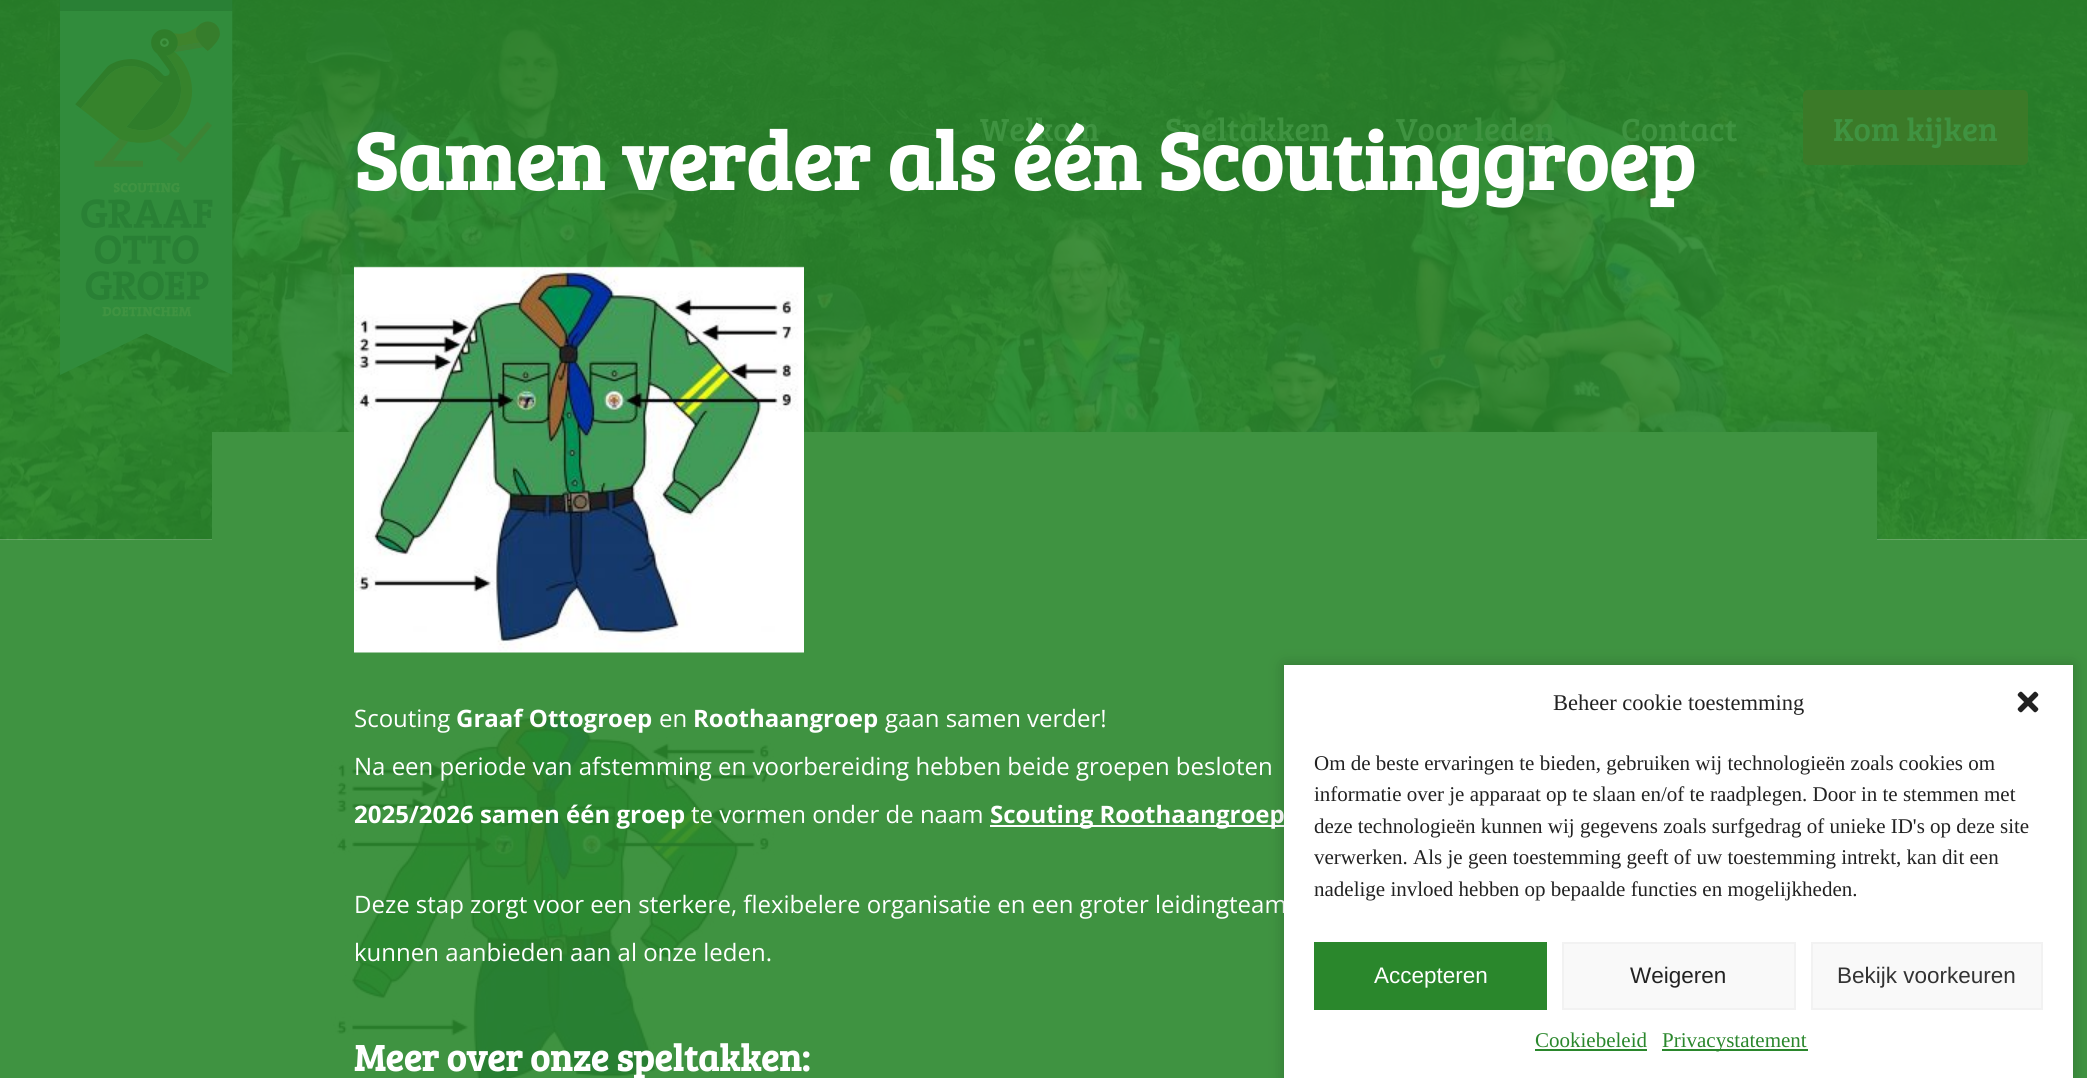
#include <cairo.h>
#include <math.h>
#include <stddef.h>

typedef struct { double x, y; const char *s; } line_t;

static void ink(cairo_t *ctx, unsigned color) {
    cairo_set_source_rgb(ctx, (color >> 16) / 255.0, (color >> 8 & 255) / 255.0, (color & 255) / 255.0);
}

static void round_path(cairo_t *ctx, double x, double y, double w, double h, double r) {
    cairo_new_sub_path(ctx);
    cairo_arc(ctx, x + w - r, y + h - r, r, 0, M_PI / 2);
    cairo_arc(ctx, x + r, y + h - r, r, M_PI / 2, M_PI);
    cairo_arc(ctx, x + r, y + r, r, M_PI, 1.5 * M_PI);
    cairo_arc(ctx, x + w - r, y + r, r, 1.5 * M_PI, 2 * M_PI);
    cairo_close_path(ctx);
}

static void blur_box(cairo_t *ctx, double x, double y, double w, double h, double r, double blur, double alpha) {
    cairo_push_group_with_content(ctx, CAIRO_CONTENT_ALPHA);
    cairo_set_operator(ctx, CAIRO_OPERATOR_SOURCE);
    for (int i = 15; i >= -15 && fmin(w, h) + blur * i / 3 > 0; i -= 2) {
        double e = blur * i / 6;
        cairo_set_source_rgba(ctx, 0, 0, 0, alpha * erfc((i - 1) / 8.5) / 2);
        round_path(ctx, x - e, y - e, w + 2 * e, h + 2 * e, fmax(0, fmin(r + e + blur * .6, fmin(w, h) / 2 + e)));
        cairo_fill(ctx);
    }
    cairo_pattern_t *soft = cairo_pop_group(ctx);
    cairo_mask(ctx, soft);
    cairo_pattern_destroy(soft);
}

static void paste(cairo_t *ctx, const char *path, double x, double y, double w, double h) {
    cairo_surface_t *image = cairo_image_surface_create_from_png(path);
    cairo_save(ctx);
    cairo_set_source_surface(ctx, image, x, y);
    cairo_rectangle(ctx, x, y, w, h);
    cairo_fill(ctx);
    cairo_restore(ctx);
    cairo_surface_destroy(image);
}

int main(void) {
    cairo_surface_t *surface = cairo_image_surface_create(CAIRO_FORMAT_RGB24, 2087, 1078);
    cairo_t *ctx = cairo_create(surface);
    cairo_font_options_t *options = cairo_font_options_create();
    cairo_font_options_set_hint_metrics(options, CAIRO_HINT_METRICS_OFF);
    cairo_font_options_set_hint_style(options, CAIRO_HINT_STYLE_NONE);
    cairo_set_font_options(ctx, options);
    cairo_set_miter_limit(ctx, 4);
    ink(ctx, 0xFFFFFF);
    cairo_paint(ctx);
    paste(ctx, "media/1.png", 0, 0, 2087, 540);
    paste(ctx, "media/2.png", 60, 0, 173, 375);
    cairo_select_font_face(ctx, "Bree Serif", CAIRO_FONT_SLANT_NORMAL, CAIRO_FONT_WEIGHT_NORMAL);
    cairo_set_font_size(ctx, 33);
    ink(ctx, 0x3F9341);
    {
        static const line_t items[] = {
            {980, 141, "Welkom"},
            {1165, 141, "Speltakken"},
            {1396, 141, "Voor leden"},
            {1621, 141, "Contact"},
        };
        for (size_t i = 0; i < sizeof items / sizeof *items; i++) {
            cairo_move_to(ctx, items[i].x, items[i].y);
            cairo_show_text(ctx, items[i].s);
        }
    }
    ink(ctx, 0x3B7A28);
    round_path(ctx, 1803, 90, 225, 75, 5);
    cairo_fill(ctx);
    ink(ctx, 0x3F9341);
    cairo_move_to(ctx, 1833, 141);
    cairo_show_text(ctx, "Kom kijken");
    cairo_select_font_face(ctx, "Bree Serif", CAIRO_FONT_SLANT_NORMAL, CAIRO_FONT_WEIGHT_BOLD);
    cairo_set_font_size(ctx, 82.5);
    ink(ctx, 0xFFFFFF);
    cairo_move_to(ctx, 354, 190);
    cairo_show_text(ctx, "Samen verder als één Scoutinggroep");
    ink(ctx, 0x3F9341);
    cairo_rectangle(ctx, 0, 540, 2087, 538);
    cairo_fill(ctx);
    cairo_rectangle(ctx, 212, 432, 1665, 108);
    cairo_fill(ctx);
    paste(ctx, "media/3.png", 354, 266, 450, 387);
    paste(ctx, "media/4.png", 331, 711, 445, 367);
    cairo_select_font_face(ctx, "Open Sans", CAIRO_FONT_SLANT_NORMAL, CAIRO_FONT_WEIGHT_NORMAL);
    cairo_set_font_size(ctx, 24);
    ink(ctx, 0xFFFFFF);
    cairo_move_to(ctx, 354, 727);
    cairo_show_text(ctx, "Scouting");
    cairo_select_font_face(ctx, "Open Sans", CAIRO_FONT_SLANT_NORMAL, CAIRO_FONT_WEIGHT_BOLD);
    cairo_move_to(ctx, 456, 727);
    cairo_show_text(ctx, "Graaf Ottogroep");
    cairo_select_font_face(ctx, "Open Sans", CAIRO_FONT_SLANT_NORMAL, CAIRO_FONT_WEIGHT_NORMAL);
    cairo_move_to(ctx, 659, 727);
    cairo_show_text(ctx, "en");
    cairo_select_font_face(ctx, "Open Sans", CAIRO_FONT_SLANT_NORMAL, CAIRO_FONT_WEIGHT_BOLD);
    cairo_move_to(ctx, 693, 727);
    cairo_show_text(ctx, "Roothaangroep");
    cairo_select_font_face(ctx, "Open Sans", CAIRO_FONT_SLANT_NORMAL, CAIRO_FONT_WEIGHT_NORMAL);
    cairo_move_to(ctx, 885, 727);
    cairo_show_text(ctx, "gaan samen verder!");
    cairo_move_to(ctx, 354, 775);
    cairo_show_text(ctx, "Na een periode van afstemming en voorbereiding hebben beide groepen besloten");
    cairo_select_font_face(ctx, "Open Sans", CAIRO_FONT_SLANT_NORMAL, CAIRO_FONT_WEIGHT_BOLD);
    cairo_move_to(ctx, 354, 823);
    cairo_show_text(ctx, "2025/2026 samen één groep");
    cairo_select_font_face(ctx, "Open Sans", CAIRO_FONT_SLANT_NORMAL, CAIRO_FONT_WEIGHT_NORMAL);
    cairo_move_to(ctx, 691, 823);
    cairo_show_text(ctx, "te vormen onder de naam");
    cairo_rectangle(ctx, 990, 825, 296, 2);
    cairo_fill(ctx);
    cairo_select_font_face(ctx, "Open Sans", CAIRO_FONT_SLANT_NORMAL, CAIRO_FONT_WEIGHT_BOLD);
    cairo_move_to(ctx, 990, 823);
    cairo_show_text(ctx, "Scouting Roothaangroep");
    cairo_select_font_face(ctx, "Open Sans", CAIRO_FONT_SLANT_NORMAL, CAIRO_FONT_WEIGHT_NORMAL);
    cairo_move_to(ctx, 354, 913);
    cairo_show_text(ctx, "Deze stap zorgt voor een sterkere, flexibelere organisatie en een groter leidingteam");
    cairo_move_to(ctx, 354, 961);
    cairo_show_text(ctx, "kunnen aanbieden aan al onze leden.");
    cairo_select_font_face(ctx, "Bree Serif", CAIRO_FONT_SLANT_NORMAL, CAIRO_FONT_WEIGHT_BOLD);
    cairo_set_font_size(ctx, 37.5);
    cairo_move_to(ctx, 354, 1071);
    cairo_show_text(ctx, "Meer over onze speltakken:");
    ink(ctx, 0x000000);
    blur_box(ctx, 1284, 665, 789, 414, 0, 7.5, 0.2);
    ink(ctx, 0xFFFFFF);
    cairo_rectangle(ctx, 1284, 665, 789, 413);
    cairo_fill(ctx);
    cairo_select_font_face(ctx, "Liberation Serif", CAIRO_FONT_SLANT_NORMAL, CAIRO_FONT_WEIGHT_NORMAL);
    cairo_set_font_size(ctx, 22.5);
    ink(ctx, 0x222222);
    cairo_move_to(ctx, 1553, 710);
    cairo_show_text(ctx, "Beheer cookie toestemming");
    paste(ctx, "media/5.png", 2017, 691, 22, 22);
    cairo_set_font_size(ctx, 21);
    {
        static const line_t items[] = {
            {1314, 770, "Om de beste ervaringen te bieden, gebruiken wij technologieën zoals cookies om"},
            {1314, 801, "informatie over je apparaat op te slaan en/of te raadplegen. Door in te stemmen met"},
            {1314, 833, "deze technologieën kunnen wij gegevens zoals surfgedrag of unieke ID's op deze site"},
            {1314, 864, "verwerken. Als je geen toestemming geeft of uw toestemming intrekt, kan dit een"},
            {1314, 896, "nadelige invloed hebben op bepaalde functies en mogelijkheden."},
        };
        for (size_t i = 0; i < sizeof items / sizeof *items; i++) {
            cairo_move_to(ctx, items[i].x, items[i].y);
            cairo_show_text(ctx, items[i].s);
        }
    }
    ink(ctx, 0x2A872C);
    cairo_rectangle(ctx, 1314, 942, 233, 68);
    cairo_fill(ctx);
    cairo_select_font_face(ctx, "Liberation Sans", CAIRO_FONT_SLANT_NORMAL, CAIRO_FONT_WEIGHT_NORMAL);
    cairo_set_font_size(ctx, 22.5);
    ink(ctx, 0xFFFFFF);
    cairo_move_to(ctx, 1374, 983);
    cairo_show_text(ctx, "Accepteren");
    ink(ctx, 0xF9F9F9);
    cairo_rectangle(ctx, 1563, 943, 232, 66);
    cairo_fill_preserve(ctx);
    ink(ctx, 0xF2F2F2);
    cairo_stroke(ctx);
    ink(ctx, 0x222222);
    cairo_move_to(ctx, 1630, 983);
    cairo_show_text(ctx, "Weigeren");
    ink(ctx, 0xF9F9F9);
    cairo_rectangle(ctx, 1812, 943, 230, 66);
    cairo_fill_preserve(ctx);
    ink(ctx, 0xF2F2F2);
    cairo_stroke(ctx);
    ink(ctx, 0x333333);
    cairo_move_to(ctx, 1837, 983);
    cairo_show_text(ctx, "Bekijk voorkeuren");
    cairo_select_font_face(ctx, "Liberation Serif", CAIRO_FONT_SLANT_NORMAL, CAIRO_FONT_WEIGHT_NORMAL);
    cairo_set_font_size(ctx, 21);
    ink(ctx, 0x2A872C);
    cairo_move_to(ctx, 1535, 1047);
    cairo_show_text(ctx, "Cookiebeleid");
    cairo_rectangle(ctx, 1535, 1049, 112, 2);
    cairo_fill(ctx);
    cairo_rectangle(ctx, 1662, 1049, 146, 2);
    cairo_fill(ctx);
    cairo_move_to(ctx, 1662, 1047);
    cairo_show_text(ctx, "Privacystatement");
    cairo_surface_write_to_png(surface, "image.png");
    cairo_font_options_destroy(options);
    cairo_destroy(ctx);
    cairo_surface_destroy(surface);
    return 0;
}
